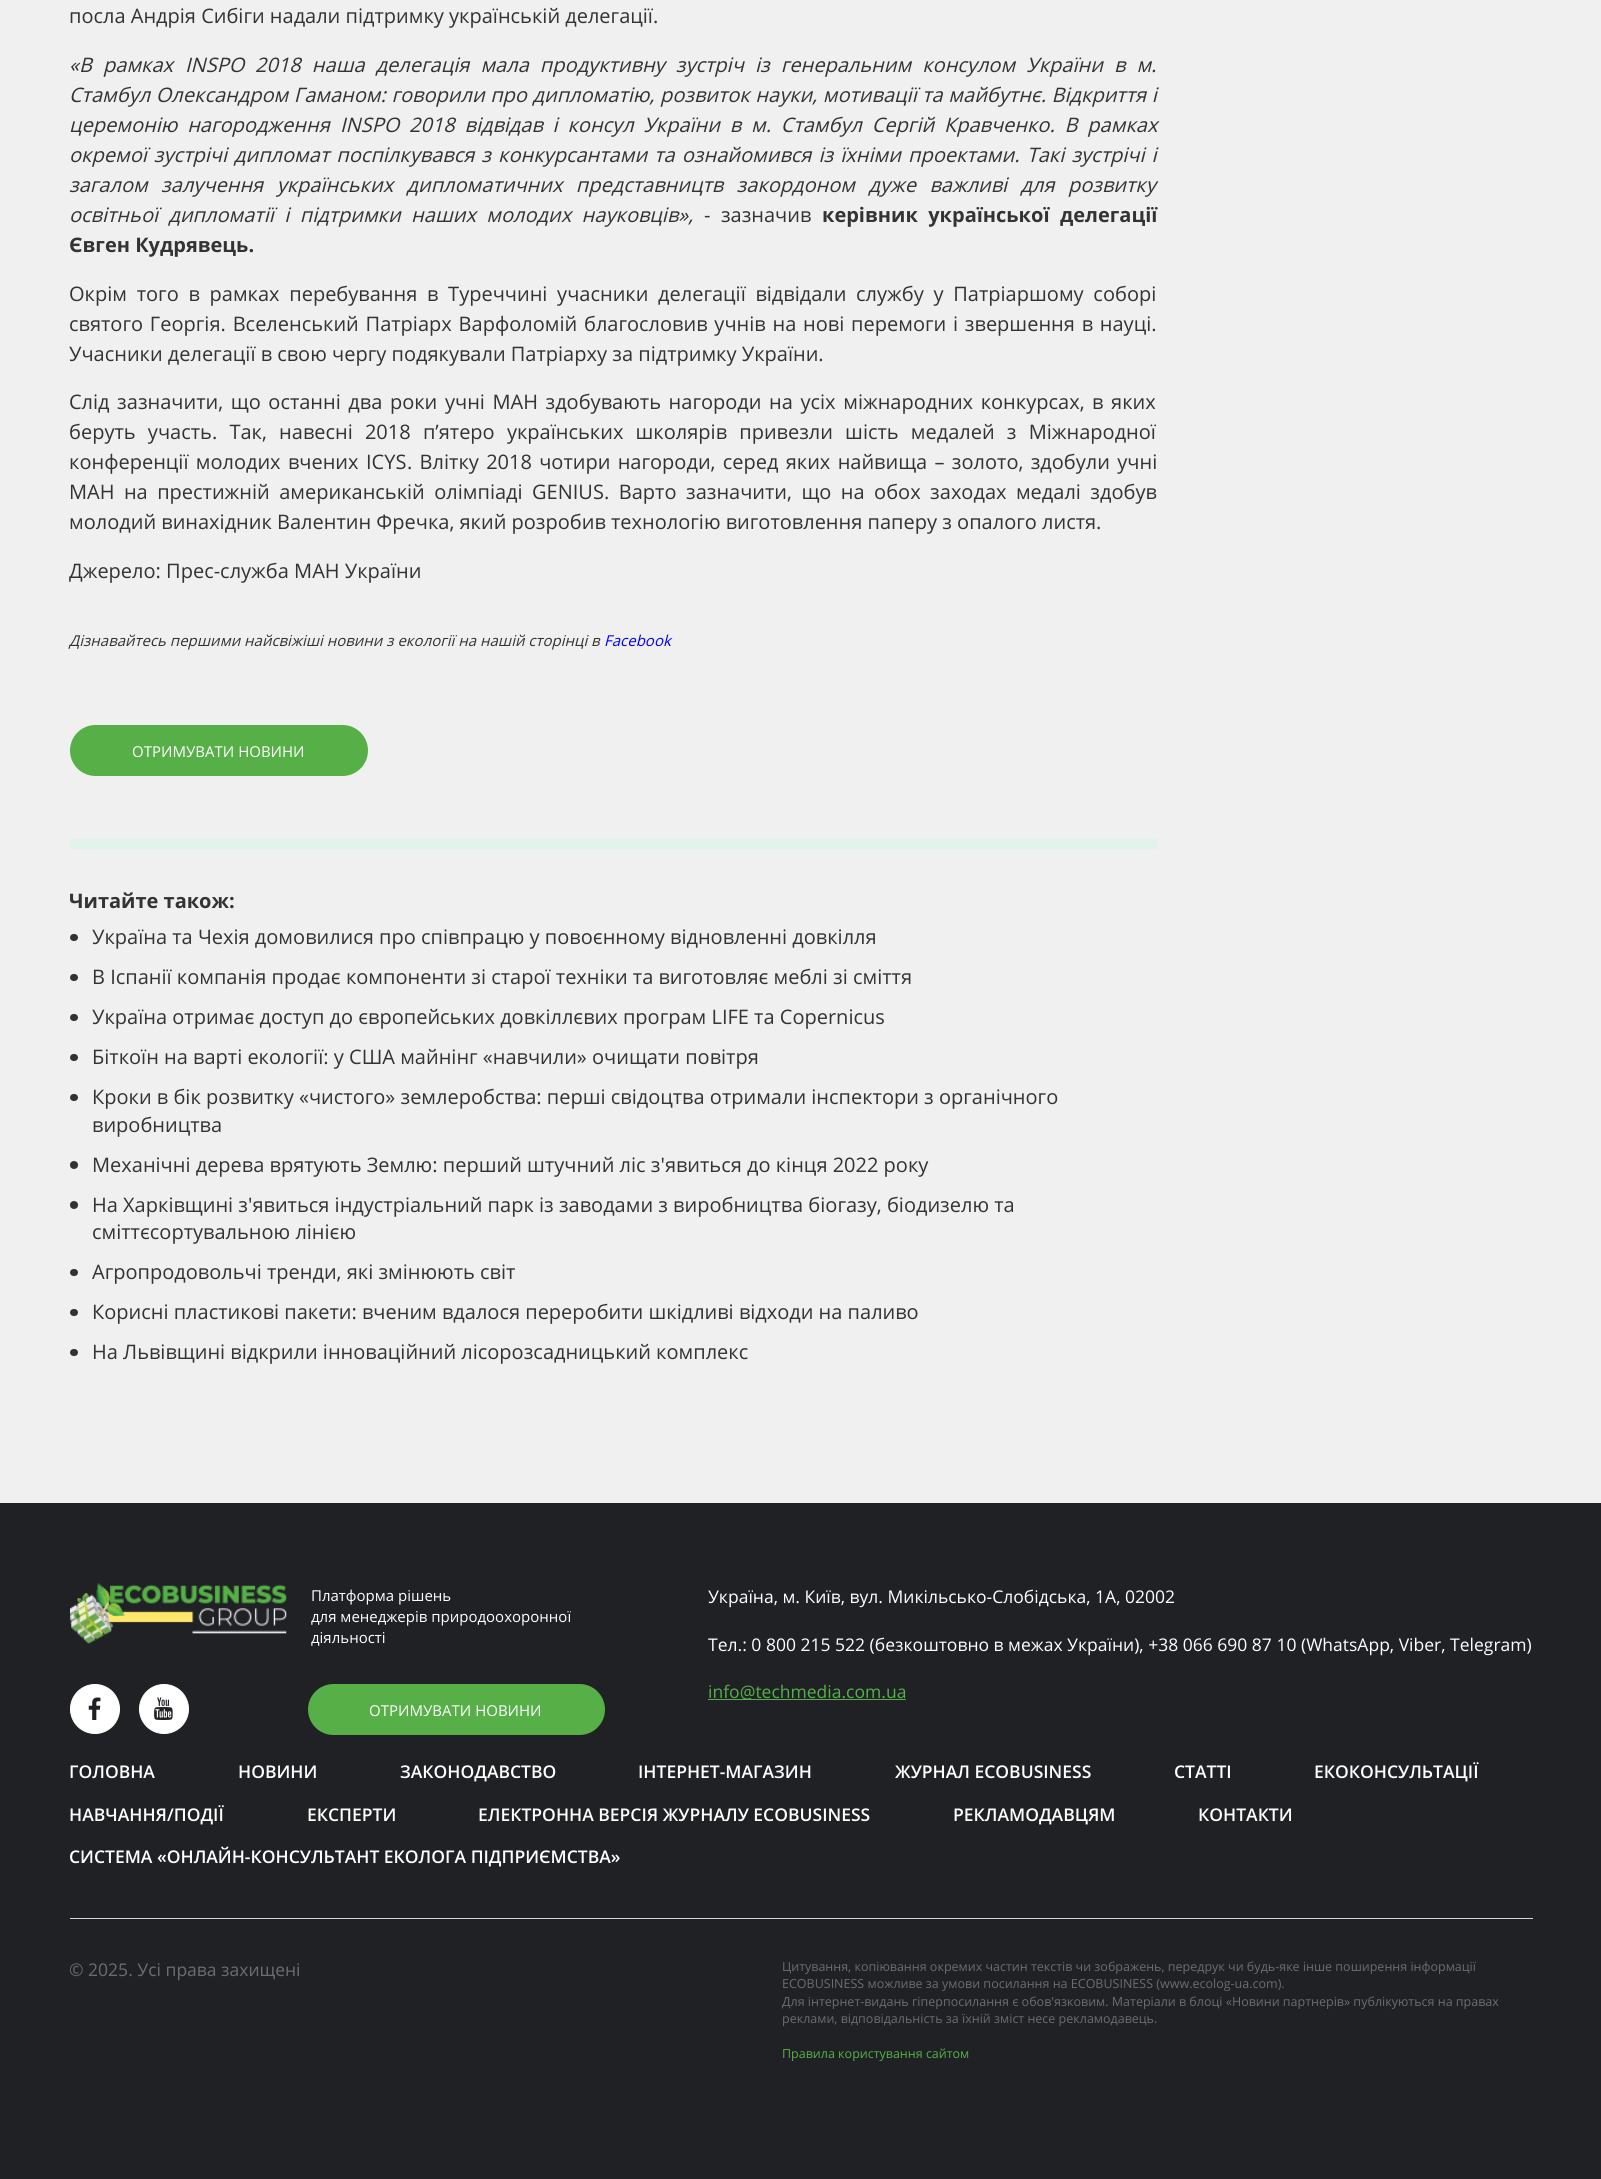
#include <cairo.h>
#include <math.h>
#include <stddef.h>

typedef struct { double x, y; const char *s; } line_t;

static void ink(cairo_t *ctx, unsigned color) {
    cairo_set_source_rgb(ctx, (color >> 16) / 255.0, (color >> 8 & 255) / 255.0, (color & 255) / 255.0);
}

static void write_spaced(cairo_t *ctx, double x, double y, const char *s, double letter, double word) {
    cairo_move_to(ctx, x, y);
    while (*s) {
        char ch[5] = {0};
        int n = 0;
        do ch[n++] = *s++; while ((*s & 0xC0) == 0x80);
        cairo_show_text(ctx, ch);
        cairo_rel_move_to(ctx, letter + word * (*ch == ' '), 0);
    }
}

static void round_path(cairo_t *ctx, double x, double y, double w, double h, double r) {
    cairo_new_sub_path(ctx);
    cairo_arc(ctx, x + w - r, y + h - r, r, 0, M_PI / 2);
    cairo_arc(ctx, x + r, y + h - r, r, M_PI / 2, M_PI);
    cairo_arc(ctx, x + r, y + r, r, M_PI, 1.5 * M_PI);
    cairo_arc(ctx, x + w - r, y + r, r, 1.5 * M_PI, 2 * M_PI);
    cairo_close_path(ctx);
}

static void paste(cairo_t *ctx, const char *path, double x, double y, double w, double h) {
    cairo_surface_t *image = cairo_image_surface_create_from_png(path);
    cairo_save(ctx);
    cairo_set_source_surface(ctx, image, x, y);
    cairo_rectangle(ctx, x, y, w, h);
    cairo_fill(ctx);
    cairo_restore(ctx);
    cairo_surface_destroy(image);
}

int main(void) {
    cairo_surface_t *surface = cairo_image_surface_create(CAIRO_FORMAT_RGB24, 1601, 2179);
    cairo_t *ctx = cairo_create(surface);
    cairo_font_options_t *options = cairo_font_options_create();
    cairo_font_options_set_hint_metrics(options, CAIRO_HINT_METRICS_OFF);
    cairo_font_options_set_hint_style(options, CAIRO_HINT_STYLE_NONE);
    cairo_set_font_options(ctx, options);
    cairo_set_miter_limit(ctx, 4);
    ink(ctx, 0xF0F0F0);
    cairo_paint(ctx);
    cairo_select_font_face(ctx, "Open Sans", CAIRO_FONT_SLANT_NORMAL, CAIRO_FONT_WEIGHT_NORMAL);
    cairo_set_font_size(ctx, 20);
    ink(ctx, 0x333333);
    cairo_move_to(ctx, 69, 23);
    cairo_show_text(ctx, "посла Андрія Сибіги надали підтримку українській делегації.");
    cairo_select_font_face(ctx, "Open Sans", CAIRO_FONT_SLANT_ITALIC, CAIRO_FONT_WEIGHT_NORMAL);
    write_spaced(ctx, 69, 72, "«В рамках", 0, 5.9);
    cairo_move_to(ctx, 185, 72);
    cairo_show_text(ctx, "INSPO");
    write_spaced(ctx, 255, 72, "2018 наша делегація мала продуктивну зустріч із генеральним консулом України в м.", 0, 5.9);
    write_spaced(ctx, 69, 102, "Стамбул Олександром Гаманом: говорили про дипломатію, розвиток науки, мотивації та майбутнє. Відкриття і", 0, 0.4);
    write_spaced(ctx, 69, 132, "церемонію нагородження", 0, 4.6);
    cairo_move_to(ctx, 340, 132);
    cairo_show_text(ctx, "INSPO");
    write_spaced(ctx, 409, 132, "2018 відвідав і консул України в м. Стамбул Сергій Кравченко. В рамках", 0, 4.6);
    write_spaced(ctx, 69, 162, "окремої зустрічі дипломат поспілкувався з конкурсантами та ознайомився із їхніми проектами. Такі зустрічі і", 0, 1.9);
    write_spaced(ctx, 69, 192, "загалом залучення українських дипломатичних представництв закордоном дуже важливі для розвитку", 0, 8.25);
    write_spaced(ctx, 69, 222, "освітньої дипломатії і підтримки наших молодих науковців»,", 0, 5.25);
    cairo_select_font_face(ctx, "Open Sans", CAIRO_FONT_SLANT_NORMAL, CAIRO_FONT_WEIGHT_NORMAL);
    write_spaced(ctx, 704, 222, "- зазначив", 0, 5.25);
    cairo_select_font_face(ctx, "Open Sans", CAIRO_FONT_SLANT_NORMAL, CAIRO_FONT_WEIGHT_BOLD);
    write_spaced(ctx, 822, 222, "керівник української делегації", 0, 5.25);
    cairo_move_to(ctx, 69, 252);
    cairo_show_text(ctx, "Євген Кудрявець.");
    cairo_select_font_face(ctx, "Open Sans", CAIRO_FONT_SLANT_NORMAL, CAIRO_FONT_WEIGHT_NORMAL);
    write_spaced(ctx, 69, 301, "Окрім того в рамках перебування в Туреччині учасники делегації відвідали службу у Патріаршому соборі", 0, 4.5);
    write_spaced(ctx, 69, 331, "святого Георгія. Вселенський Патріарх Варфоломій благословив учнів на нові перемоги і звершення в науці.", 0, 1.6);
    cairo_move_to(ctx, 69, 361);
    cairo_show_text(ctx, "Учасники делегації в свою чергу подякували Патріарху за підтримку України.");
    write_spaced(ctx, 69, 409, "Слід зазначити, що останні два роки учні МАН здобувають нагороди на усіх міжнародних конкурсах, в яких", 0, 2.4);
    write_spaced(ctx, 69, 439, "беруть участь. Так, навесні 2018 п’ятеро українських школярів привезли шість медалей з Міжнародної", 0, 7);
    write_spaced(ctx, 69, 469, "конференції молодих вчених", 0, 2.1);
    cairo_move_to(ctx, 366, 469);
    cairo_show_text(ctx, "ICYS");
    write_spaced(ctx, 407, 469, ". Влітку 2018 чотири нагороди, серед яких найвища – золото, здобули учні", 0, 2.1);
    write_spaced(ctx, 69, 499, "МАН на престижній американській олімпіаді", 0, 4.25);
    cairo_move_to(ctx, 532, 499);
    cairo_show_text(ctx, "GENIUS");
    write_spaced(ctx, 604, 499, ". Варто зазначити, що на обох заходах медалі здобув", 0, 4.25);
    cairo_move_to(ctx, 69, 529);
    cairo_show_text(ctx, "молодий винахідник Валентин Фречка, який розробив технологію виготовлення паперу з опалого листя.");
    cairo_move_to(ctx, 69, 578);
    cairo_show_text(ctx, "Джерело: Прес-служба МАН України");
    cairo_select_font_face(ctx, "Open Sans", CAIRO_FONT_SLANT_ITALIC, CAIRO_FONT_WEIGHT_NORMAL);
    cairo_set_font_size(ctx, 15);
    cairo_move_to(ctx, 69, 646);
    cairo_show_text(ctx, "Дізнавайтесь першими найсвіжіші новини з екології на нашій сторінці в");
    ink(ctx, 0x0000FF);
    cairo_move_to(ctx, 604, 646);
    cairo_show_text(ctx, "Facebook");
    ink(ctx, 0x56AF47);
    round_path(ctx, 70, 725, 298, 51, 25.5);
    cairo_fill(ctx);
    cairo_select_font_face(ctx, "Open Sans", CAIRO_FONT_SLANT_NORMAL, CAIRO_FONT_WEIGHT_NORMAL);
    ink(ctx, 0xFFFFFF);
    cairo_move_to(ctx, 132, 757);
    cairo_show_text(ctx, "ОТРИМУВАТИ НОВИНИ");
    ink(ctx, 0xE2F3E9);
    cairo_rectangle(ctx, 70, 839, 1088, 10);
    cairo_fill(ctx);
    cairo_select_font_face(ctx, "Open Sans", CAIRO_FONT_SLANT_NORMAL, CAIRO_FONT_WEIGHT_BOLD);
    cairo_set_font_size(ctx, 20);
    ink(ctx, 0x333333);
    cairo_move_to(ctx, 69, 908);
    cairo_show_text(ctx, "Читайте також:");
    round_path(ctx, 70, 934, 8, 7, 3.5);
    cairo_fill(ctx);
    cairo_select_font_face(ctx, "Open Sans", CAIRO_FONT_SLANT_NORMAL, CAIRO_FONT_WEIGHT_NORMAL);
    cairo_move_to(ctx, 92, 944);
    cairo_show_text(ctx, "Україна та Чехія домовилися про співпрацю у повоєнному відновленні довкілля");
    round_path(ctx, 70, 974, 8, 7, 3.5);
    cairo_fill(ctx);
    cairo_move_to(ctx, 92, 984);
    cairo_show_text(ctx, "В Іспанії компанія продає компоненти зі старої техніки та виготовляє меблі зі сміття");
    round_path(ctx, 70, 1014, 8, 7, 3.5);
    cairo_fill(ctx);
    cairo_move_to(ctx, 92, 1024);
    cairo_show_text(ctx, "Україна отримає доступ до європейських довкіллєвих програм LIFE та Copernicus");
    round_path(ctx, 70, 1054, 8, 7, 3.5);
    cairo_fill(ctx);
    cairo_move_to(ctx, 92, 1064);
    cairo_show_text(ctx, "Біткоїн на варті екології: у США майнінг «навчили» очищати повітря");
    round_path(ctx, 70, 1094, 8, 7, 3.5);
    cairo_fill(ctx);
    cairo_move_to(ctx, 92, 1104);
    cairo_show_text(ctx, "Кроки в бік розвитку «чистого» землеробства: перші свідоцтва отримали інспектори з органічного");
    cairo_move_to(ctx, 92, 1132);
    cairo_show_text(ctx, "виробництва");
    cairo_new_path(ctx);
    cairo_arc(ctx, 74, 1165, 4, 0, 2 * M_PI);
    cairo_fill(ctx);
    cairo_move_to(ctx, 92, 1172);
    cairo_show_text(ctx, "Механічні дерева врятують Землю: перший штучний ліс з'явиться до кінця 2022 року");
    cairo_new_path(ctx);
    cairo_arc(ctx, 74, 1205, 4, 0, 2 * M_PI);
    cairo_fill(ctx);
    cairo_move_to(ctx, 92, 1212);
    cairo_show_text(ctx, "На Харківщині з'явиться індустріальний парк із заводами з виробництва біогазу, біодизелю та");
    cairo_move_to(ctx, 92, 1239);
    cairo_show_text(ctx, "сміттєсортувальною лінією");
    round_path(ctx, 70, 1269, 8, 7, 3.5);
    cairo_fill(ctx);
    cairo_move_to(ctx, 92, 1279);
    cairo_show_text(ctx, "Агропродовольчі тренди, які змінюють світ");
    round_path(ctx, 70, 1309, 8, 7, 3.5);
    cairo_fill(ctx);
    cairo_move_to(ctx, 92, 1319);
    cairo_show_text(ctx, "Корисні пластикові пакети: вченим вдалося переробити шкідливі відходи на паливо");
    round_path(ctx, 70, 1349, 8, 7, 3.5);
    cairo_fill(ctx);
    cairo_move_to(ctx, 92, 1359);
    cairo_show_text(ctx, "На Львівщині відкрили інноваційний лісорозсадницький комплекс");
    ink(ctx, 0x202125);
    cairo_rectangle(ctx, 0, 1503, 1601, 676);
    cairo_fill(ctx);
    paste(ctx, "media/1.png", 70, 1583, 217, 61);
    cairo_set_font_size(ctx, 15);
    ink(ctx, 0xFFFFFF);
    {
        static const line_t items[] = {
            {311, 1601, "Платформа рішень"},
            {311, 1622, "для менеджерів природоохоронної"},
            {311, 1643, "діяльності"},
        };
        for (size_t i = 0; i < sizeof items / sizeof *items; i++) {
            cairo_move_to(ctx, items[i].x, items[i].y);
            cairo_show_text(ctx, items[i].s);
        }
    }
    cairo_set_font_size(ctx, 17.5);
    cairo_move_to(ctx, 708, 1603);
    cairo_show_text(ctx, "Україна, м. Київ, вул. Микільсько-Слобідська, 1А, 02002");
    cairo_move_to(ctx, 708, 1651);
    cairo_show_text(ctx, "Тел.: 0 800 215 522 (безкоштовно в межах України), +38 066 690 87 10 (WhatsApp, Viber, Telegram)");
    ink(ctx, 0x56AF47);
    cairo_rectangle(ctx, 708, 1699, 198, 1);
    cairo_fill(ctx);
    cairo_move_to(ctx, 708, 1698);
    cairo_show_text(ctx, "info@techmedia.com.ua");
    ink(ctx, 0xFFFFFF);
    cairo_new_path(ctx);
    cairo_arc(ctx, 95, 1709, 24.5, 0, 2 * M_PI);
    cairo_fill_preserve(ctx);
    cairo_set_line_width(ctx, 1);
    cairo_stroke(ctx);
    paste(ctx, "media/2.png", 88, 1697, 13, 23);
    cairo_arc(ctx, 164, 1709, 24.5, 0, 2 * M_PI);
    cairo_fill_preserve(ctx);
    cairo_stroke(ctx);
    paste(ctx, "media/3.png", 154, 1697, 19, 23);
    ink(ctx, 0x56AF47);
    round_path(ctx, 308, 1684, 297, 51, 25.5);
    cairo_fill(ctx);
    cairo_set_font_size(ctx, 15);
    ink(ctx, 0xFFFFFF);
    cairo_move_to(ctx, 369, 1716);
    cairo_show_text(ctx, "ОТРИМУВАТИ НОВИНИ");
    ink(ctx, 0xD6D4D4);
    cairo_rectangle(ctx, 70, 1918, 1463, 1);
    cairo_fill(ctx);
    cairo_select_font_face(ctx, "Open Sans SemiBold", CAIRO_FONT_SLANT_NORMAL, CAIRO_FONT_WEIGHT_NORMAL);
    cairo_set_font_size(ctx, 17.5);
    ink(ctx, 0xFFFFFF);
    {
        static const line_t items[] = {
            {69, 1778, "ГОЛОВНА"},
            {238, 1778, "НОВИНИ"},
            {400, 1778, "ЗАКОНОДАВСТВО"},
            {638, 1778, "ІНТЕРНЕТ-МАГАЗИН"},
            {895, 1778, "ЖУРНАЛ ECOBUSINESS"},
            {1174, 1778, "СТАТТІ"},
            {1314, 1778, "ЕКОКОНСУЛЬТАЦІЇ"},
            {69, 1821, "НАВЧАННЯ/ПОДІЇ"},
            {307, 1821, "ЕКСПЕРТИ"},
            {478, 1821, "ЕЛЕКТРОННА ВЕРСІЯ ЖУРНАЛУ ECOBUSINESS"},
            {953, 1821, "РЕКЛАМОДАВЦЯМ"},
            {1198, 1821, "КОНТАКТИ"},
            {69, 1863, "СИСТЕМА «ОНЛАЙН-КОНСУЛЬТАНТ ЕКОЛОГА ПІДПРИЄМСТВА»"},
        };
        for (size_t i = 0; i < sizeof items / sizeof *items; i++) {
            cairo_move_to(ctx, items[i].x, items[i].y);
            cairo_show_text(ctx, items[i].s);
        }
    }
    cairo_select_font_face(ctx, "Open Sans", CAIRO_FONT_SLANT_NORMAL, CAIRO_FONT_WEIGHT_NORMAL);
    ink(ctx, 0x6B6C70);
    cairo_move_to(ctx, 69, 1976);
    cairo_show_text(ctx, "© 2025. Усі права захищені");
    cairo_set_font_size(ctx, 12.5);
    {
        static const line_t items[] = {
            {782, 1971, "Цитування, копіювання окремих частин текстів чи зображень, передрук чи будь-яке інше поширення інформації"},
            {782, 1988, "ECOBUSINESS можливе за умови посилання на ECOBUSINESS (www.ecolog-ua.com)."},
            {782, 2006, "Для інтернет-видань гіперпосилання є обов'язковим. Матеріали в блоці «Новини партнерів» публікуються на правах"},
            {782, 2023, "реклами, відповідальність за їхній зміст несе рекламодавець."},
        };
        for (size_t i = 0; i < sizeof items / sizeof *items; i++) {
            cairo_move_to(ctx, items[i].x, items[i].y);
            cairo_show_text(ctx, items[i].s);
        }
    }
    ink(ctx, 0x56AF47);
    cairo_move_to(ctx, 782, 2058);
    cairo_show_text(ctx, "Правила користування сайтом");
    cairo_surface_write_to_png(surface, "image.png");
    cairo_font_options_destroy(options);
    cairo_destroy(ctx);
    cairo_surface_destroy(surface);
    return 0;
}
